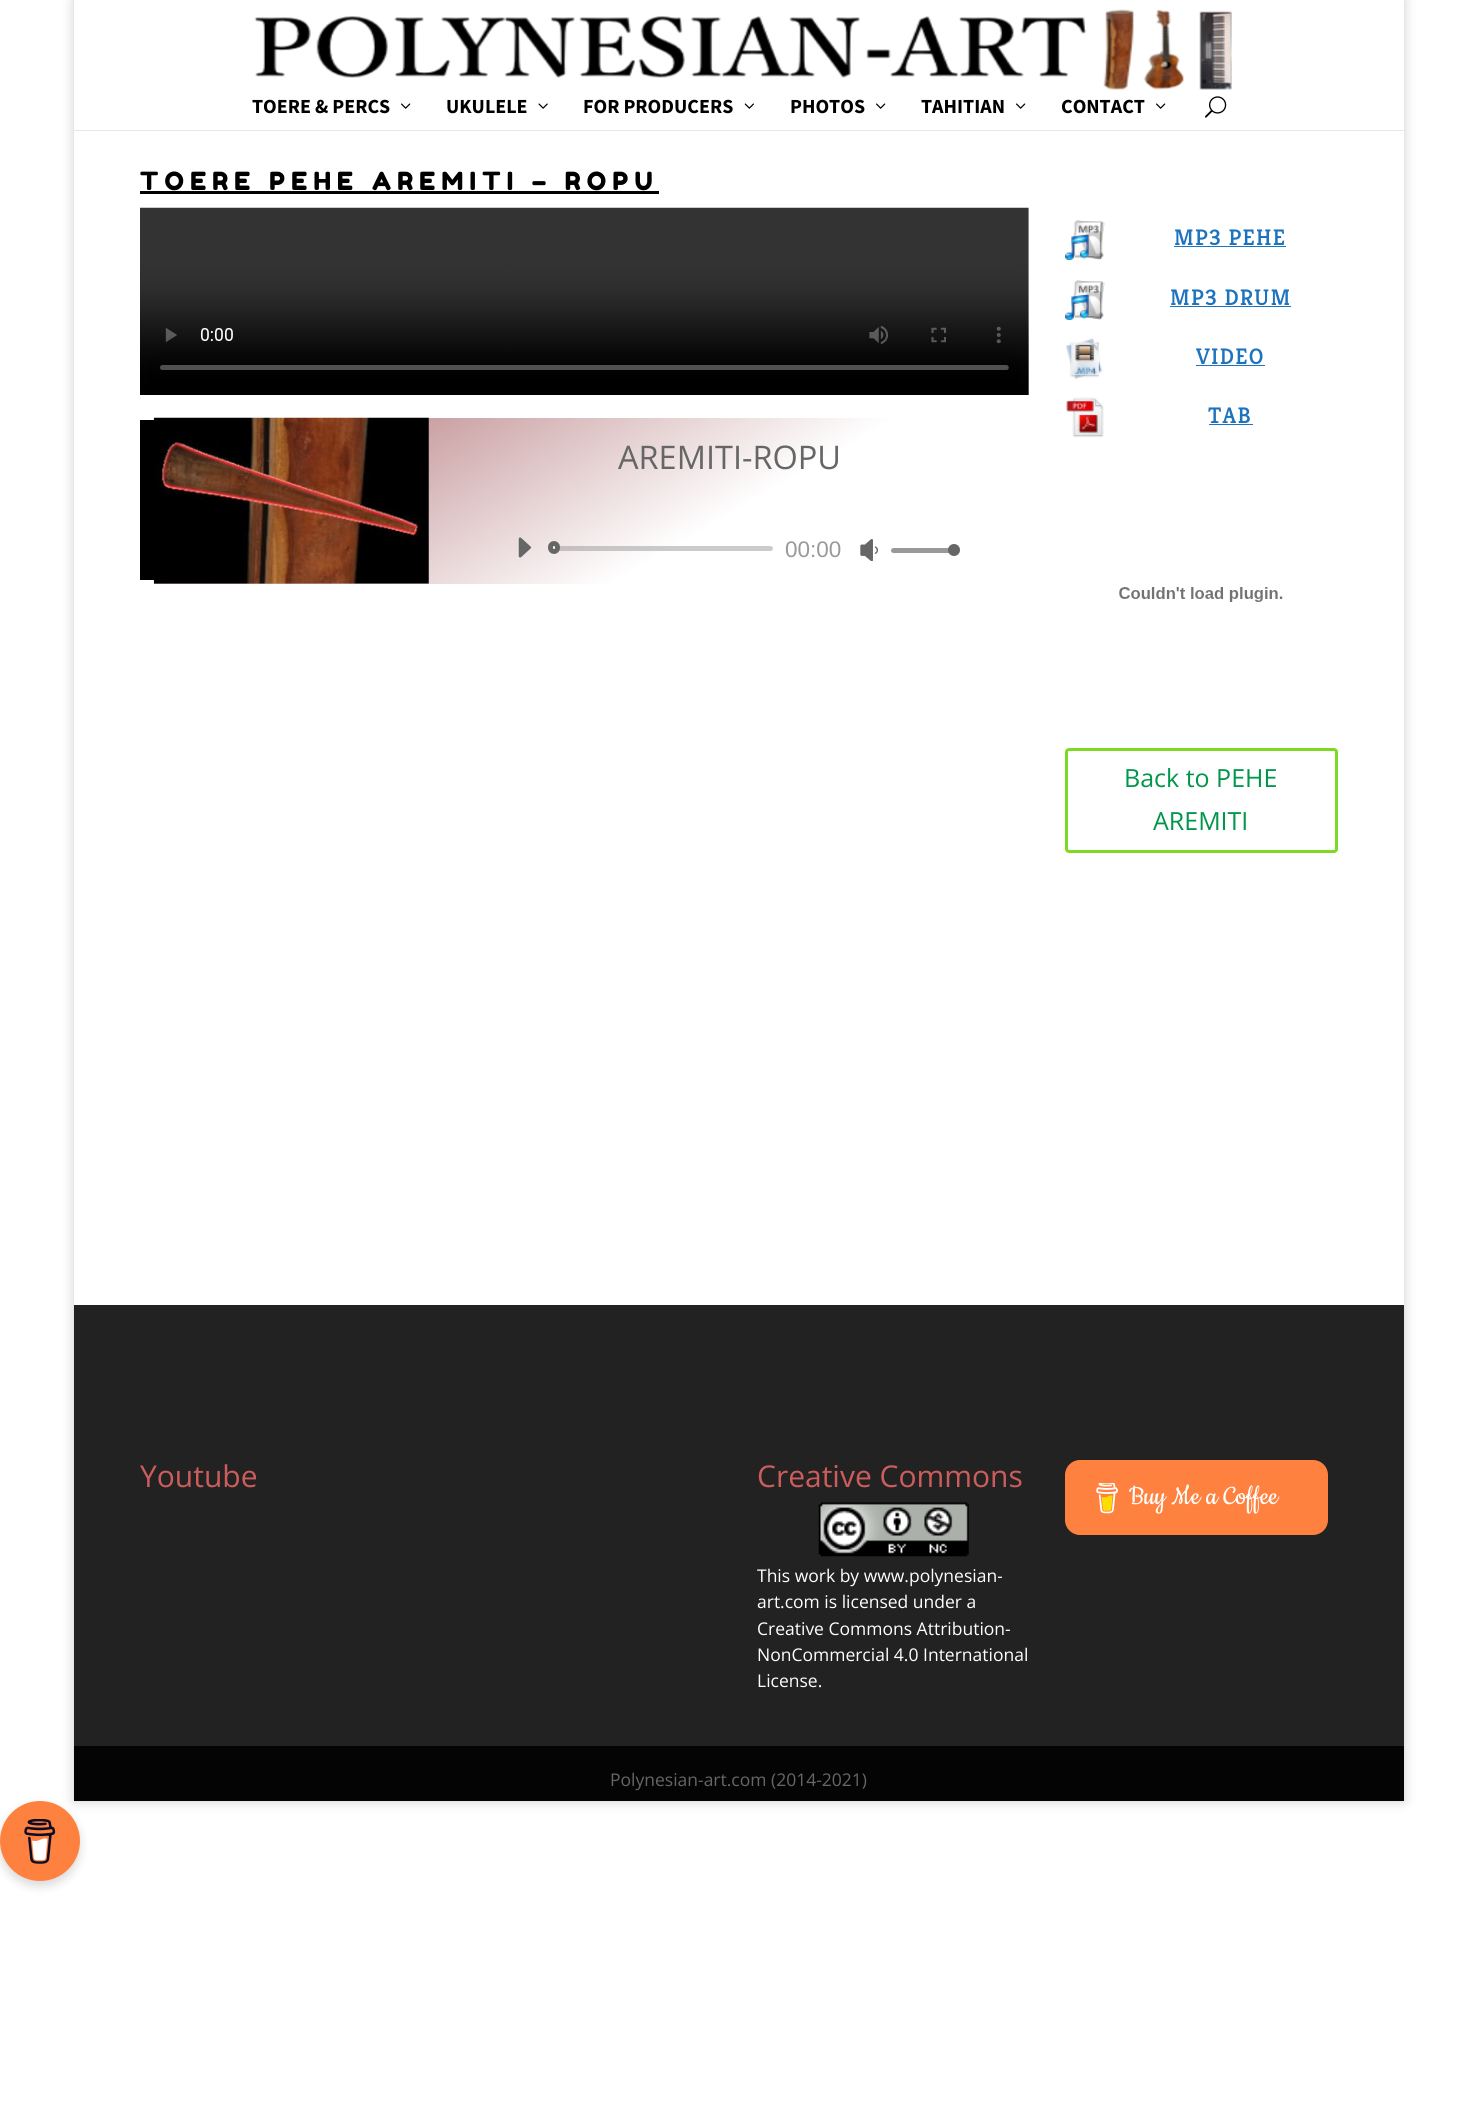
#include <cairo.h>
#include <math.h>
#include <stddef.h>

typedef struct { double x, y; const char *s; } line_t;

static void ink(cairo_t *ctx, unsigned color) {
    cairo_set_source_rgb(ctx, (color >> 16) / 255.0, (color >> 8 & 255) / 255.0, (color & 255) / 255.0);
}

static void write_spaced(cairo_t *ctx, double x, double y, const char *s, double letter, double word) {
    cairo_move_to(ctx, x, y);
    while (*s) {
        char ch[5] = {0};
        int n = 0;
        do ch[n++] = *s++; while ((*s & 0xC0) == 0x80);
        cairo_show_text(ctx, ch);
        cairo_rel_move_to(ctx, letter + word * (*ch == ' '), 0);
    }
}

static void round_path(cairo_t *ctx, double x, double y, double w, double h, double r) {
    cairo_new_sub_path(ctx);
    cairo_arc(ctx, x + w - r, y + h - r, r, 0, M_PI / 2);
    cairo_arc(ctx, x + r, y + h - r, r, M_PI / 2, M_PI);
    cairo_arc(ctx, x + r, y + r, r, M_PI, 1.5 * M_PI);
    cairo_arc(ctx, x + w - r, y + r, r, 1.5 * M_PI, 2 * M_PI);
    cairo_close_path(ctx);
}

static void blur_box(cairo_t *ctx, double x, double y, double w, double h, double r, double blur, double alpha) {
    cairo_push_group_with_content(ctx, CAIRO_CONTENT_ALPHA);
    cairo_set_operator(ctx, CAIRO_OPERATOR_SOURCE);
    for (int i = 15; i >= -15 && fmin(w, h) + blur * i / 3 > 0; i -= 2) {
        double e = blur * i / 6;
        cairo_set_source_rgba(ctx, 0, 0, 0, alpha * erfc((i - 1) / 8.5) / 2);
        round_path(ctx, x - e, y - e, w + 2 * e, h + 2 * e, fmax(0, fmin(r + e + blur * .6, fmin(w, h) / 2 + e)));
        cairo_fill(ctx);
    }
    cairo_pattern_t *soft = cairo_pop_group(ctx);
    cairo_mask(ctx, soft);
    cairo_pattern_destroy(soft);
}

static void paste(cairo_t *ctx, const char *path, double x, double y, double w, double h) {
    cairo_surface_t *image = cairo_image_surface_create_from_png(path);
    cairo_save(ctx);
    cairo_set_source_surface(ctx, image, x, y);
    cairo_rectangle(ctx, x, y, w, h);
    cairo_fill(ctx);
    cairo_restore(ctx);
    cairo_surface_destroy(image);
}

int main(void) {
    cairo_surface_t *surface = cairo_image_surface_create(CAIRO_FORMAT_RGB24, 1477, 2114);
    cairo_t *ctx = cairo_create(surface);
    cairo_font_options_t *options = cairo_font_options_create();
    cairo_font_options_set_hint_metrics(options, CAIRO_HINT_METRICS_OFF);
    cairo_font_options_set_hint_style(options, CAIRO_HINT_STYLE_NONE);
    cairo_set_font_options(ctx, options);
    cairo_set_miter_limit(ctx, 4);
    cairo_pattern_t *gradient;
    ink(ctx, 0xFFFFFF);
    cairo_paint(ctx);
    cairo_save(ctx);
    cairo_set_fill_rule(ctx, CAIRO_FILL_RULE_EVEN_ODD);
    cairo_new_path(ctx);
    cairo_move_to(ctx, 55, 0);
    cairo_line_to(ctx, 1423, 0);
    cairo_line_to(ctx, 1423, 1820);
    cairo_line_to(ctx, 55, 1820);
    cairo_close_path(ctx);
    cairo_move_to(ctx, 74, 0);
    cairo_line_to(ctx, 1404, 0);
    cairo_line_to(ctx, 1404, 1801);
    cairo_line_to(ctx, 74, 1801);
    cairo_close_path(ctx);
    cairo_clip(ctx);
    ink(ctx, 0x000000);
    blur_box(ctx, 74, 0, 1330, 1801, 0, 6, 0.2);
    cairo_restore(ctx);
    ink(ctx, 0xE6E6E6);
    cairo_new_path(ctx);
    cairo_move_to(ctx, 74, 130);
    cairo_line_to(ctx, 74, 131);
    cairo_line_to(ctx, 1404, 131);
    cairo_line_to(ctx, 1404, 1);
    cairo_line_to(ctx, 1404, 130);
    cairo_close_path(ctx);
    cairo_fill(ctx);
    ink(ctx, 0xFFFFFF);
    cairo_rectangle(ctx, 1403, 0, 1, 130);
    cairo_fill(ctx);
    paste(ctx, "media/1.png", 254, 9, 978, 81);
    cairo_select_font_face(ctx, "Source Sans Pro", CAIRO_FONT_SLANT_NORMAL, CAIRO_FONT_WEIGHT_BOLD);
    cairo_set_font_size(ctx, 20);
    ink(ctx, 0x000000);
    cairo_move_to(ctx, 252, 113);
    cairo_show_text(ctx, "TOERE & PERCS");
    paste(ctx, "media/2.png", 401, 103, 10, 6);
    cairo_move_to(ctx, 446, 113);
    cairo_show_text(ctx, "UKULELE");
    paste(ctx, "media/3.png", 538, 103, 10, 6);
    cairo_move_to(ctx, 583, 113);
    cairo_show_text(ctx, "FOR PRODUCERS");
    paste(ctx, "media/4.png", 744, 103, 10, 6);
    cairo_move_to(ctx, 790, 113);
    cairo_show_text(ctx, "PHOTOS");
    paste(ctx, "media/2.png", 876, 103, 10, 6);
    cairo_move_to(ctx, 921, 113);
    cairo_show_text(ctx, "TAHITIAN");
    paste(ctx, "media/2.png", 1016, 103, 10, 6);
    cairo_move_to(ctx, 1061, 113);
    cairo_show_text(ctx, "CONTACT");
    paste(ctx, "media/2.png", 1156, 103, 10, 6);
    paste(ctx, "media/5.png", 1205, 96, 22, 22);
    ink(ctx, 0xFFFFFF);
    cairo_rectangle(ctx, 1403, 131, 1, 1162);
    cairo_fill(ctx);
    cairo_select_font_face(ctx, "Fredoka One", CAIRO_FONT_SLANT_NORMAL, CAIRO_FONT_WEIGHT_NORMAL);
    cairo_set_font_size(ctx, 25);
    ink(ctx, 0x000000);
    write_spaced(ctx, 140, 190, "TOERE PEHE AREMITI – ROPU", 6.25, 0);
    cairo_rectangle(ctx, 140, 191, 519, 3);
    cairo_fill(ctx);
    paste(ctx, "media/6.png", 140, 207, 889, 188);
    gradient = cairo_pattern_create_linear(737, 752, 446, 249);
    cairo_pattern_add_color_stop_rgba(gradient, 0.36, 1, 1, 1, 1);
    cairo_pattern_add_color_stop_rgba(gradient, 1, 0.671, 0.412, 0.427, 1);
    cairo_set_source(ctx, gradient);
    cairo_pattern_destroy(gradient);
    cairo_new_path(ctx);
    cairo_move_to(ctx, 154, 418);
    cairo_line_to(ctx, 1025, 418);
    cairo_curve_to(ctx, 1027, 418, 1029, 419, 1029, 421);
    cairo_line_to(ctx, 1029, 579);
    cairo_curve_to(ctx, 1029, 582, 1027, 584, 1024, 584);
    cairo_line_to(ctx, 154, 584);
    cairo_close_path(ctx);
    cairo_fill(ctx);
    ink(ctx, 0x000000);
    cairo_rectangle(ctx, 140, 420, 14, 160);
    cairo_fill(ctx);
    paste(ctx, "media/7.png", 153, 417, 276, 167);
    cairo_select_font_face(ctx, "Open Sans", CAIRO_FONT_SLANT_NORMAL, CAIRO_FONT_WEIGHT_NORMAL);
    cairo_set_font_size(ctx, 32.5);
    ink(ctx, 0x666666);
    cairo_move_to(ctx, 618, 469);
    cairo_show_text(ctx, "AREMITI-ROPU");
    paste(ctx, "media/8.png", 518, 537, 14, 21);
    cairo_set_source_rgba(ctx, 0.6, 0.6, 0.6, 0.5);
    round_path(ctx, 556, 546, 217, 5, 2.5);
    cairo_fill(ctx);
    cairo_set_source_rgba(ctx, 1, 1, 1, 0.9);
    round_path(ctx, 550.5, 543.5, 7, 8, 3.5);
    cairo_fill_preserve(ctx);
    ink(ctx, 0x666666);
    cairo_set_line_width(ctx, 5);
    cairo_stroke(ctx);
    cairo_select_font_face(ctx, "Liberation Sans", CAIRO_FONT_SLANT_NORMAL, CAIRO_FONT_WEIGHT_NORMAL);
    cairo_set_font_size(ctx, 22.5);
    ink(ctx, 0x999999);
    cairo_move_to(ctx, 785, 557);
    cairo_show_text(ctx, "00:00");
    paste(ctx, "media/9.png", 860, 539, 18, 22);
    round_path(ctx, 891, 548, 63, 5, 2.5);
    cairo_fill(ctx);
    ink(ctx, 0x666666);
    cairo_arc(ctx, 954, 550, 6, 0, 2 * M_PI);
    cairo_fill(ctx);
    paste(ctx, "media/10.png", 1065, 220, 40, 40);
    cairo_select_font_face(ctx, "Kreon Medium", CAIRO_FONT_SLANT_NORMAL, CAIRO_FONT_WEIGHT_NORMAL);
    ink(ctx, 0x1E73BE);
    write_spaced(ctx, 1174, 245, "MP3 PEHE", 1.25, 0);
    cairo_rectangle(ctx, 1174, 246, 112, 1);
    cairo_fill(ctx);
    paste(ctx, "media/11.png", 1065, 280, 40, 40);
    write_spaced(ctx, 1170, 305, "MP3 DRUM", 1.25, 0);
    cairo_rectangle(ctx, 1170, 306, 121, 1);
    cairo_fill(ctx);
    paste(ctx, "media/12.png", 1066, 338, 37, 41);
    write_spaced(ctx, 1196, 364, "VIDEO", 1.25, 0);
    cairo_rectangle(ctx, 1196, 365, 69, 1);
    cairo_fill(ctx);
    paste(ctx, "media/13.png", 1066, 397, 38, 41);
    write_spaced(ctx, 1208, 423, "TAB", 1.25, 0);
    cairo_rectangle(ctx, 1209, 424, 44, 1);
    cairo_fill(ctx);
    paste(ctx, "media/14.png", 1119, 587, 164, 15);
    round_path(ctx, 1066.5, 749.5, 270, 102, 2.5);
    ink(ctx, 0x7CDA24);
    cairo_set_line_width(ctx, 3);
    cairo_stroke(ctx);
    cairo_select_font_face(ctx, "Open Sans", CAIRO_FONT_SLANT_NORMAL, CAIRO_FONT_WEIGHT_NORMAL);
    cairo_set_font_size(ctx, 25);
    ink(ctx, 0x00964B);
    cairo_move_to(ctx, 1124, 787);
    cairo_show_text(ctx, "Back to PEHE");
    cairo_move_to(ctx, 1153, 830);
    cairo_show_text(ctx, "AREMITI");
    ink(ctx, 0x222222);
    cairo_rectangle(ctx, 74, 1305, 1330, 441);
    cairo_fill(ctx);
    cairo_set_font_size(ctx, 30);
    ink(ctx, 0xCD5C5C);
    cairo_move_to(ctx, 140, 1487);
    cairo_show_text(ctx, "Youtube");
    cairo_move_to(ctx, 757, 1487);
    cairo_show_text(ctx, "Creative Commons");
    paste(ctx, "media/15.png", 818, 1502, 151, 55);
    cairo_set_font_size(ctx, 17.5);
    ink(ctx, 0xFFFFFF);
    {
        static const line_t items[] = {
            {757, 1582, "This work by www.polynesian-"},
            {757, 1608, "art.com is licensed under a"},
            {757, 1635, "Creative Commons Attribution-"},
            {757, 1661, "NonCommercial 4.0 International"},
            {757, 1687, "License."},
        };
        for (size_t i = 0; i < sizeof items / sizeof *items; i++) {
            cairo_move_to(ctx, items[i].x, items[i].y);
            cairo_show_text(ctx, items[i].s);
        }
    }
    ink(ctx, 0xFF813F);
    round_path(ctx, 1065, 1460, 263, 75, 15);
    cairo_fill(ctx);
    paste(ctx, "media/16.png", 1096, 1483, 22, 31);
    cairo_select_font_face(ctx, "Cookie", CAIRO_FONT_SLANT_NORMAL, CAIRO_FONT_WEIGHT_NORMAL);
    cairo_set_font_size(ctx, 30);
    ink(ctx, 0xFFFFFF);
    cairo_move_to(ctx, 1129, 1504);
    cairo_show_text(ctx, "Buy Me a Coffee");
    ink(ctx, 0x040404);
    cairo_rectangle(ctx, 74, 1746, 1330, 55);
    cairo_fill(ctx);
    cairo_select_font_face(ctx, "Open Sans", CAIRO_FONT_SLANT_NORMAL, CAIRO_FONT_WEIGHT_NORMAL);
    cairo_set_font_size(ctx, 17.5);
    ink(ctx, 0x666666);
    cairo_move_to(ctx, 610, 1786);
    cairo_show_text(ctx, "Polynesian-art.com (2014-2021)");
    ink(ctx, 0x000000);
    blur_box(ctx, 0, 1806, 80, 80, 40, 5, 0.15);
    ink(ctx, 0xFF813F);
    cairo_arc(ctx, 40, 1841, 40, 0, 2 * M_PI);
    cairo_fill(ctx);
    paste(ctx, "media/17.png", 24, 1819, 32, 45);
    cairo_surface_write_to_png(surface, "image.png");
    cairo_font_options_destroy(options);
    cairo_destroy(ctx);
    cairo_surface_destroy(surface);
    return 0;
}
